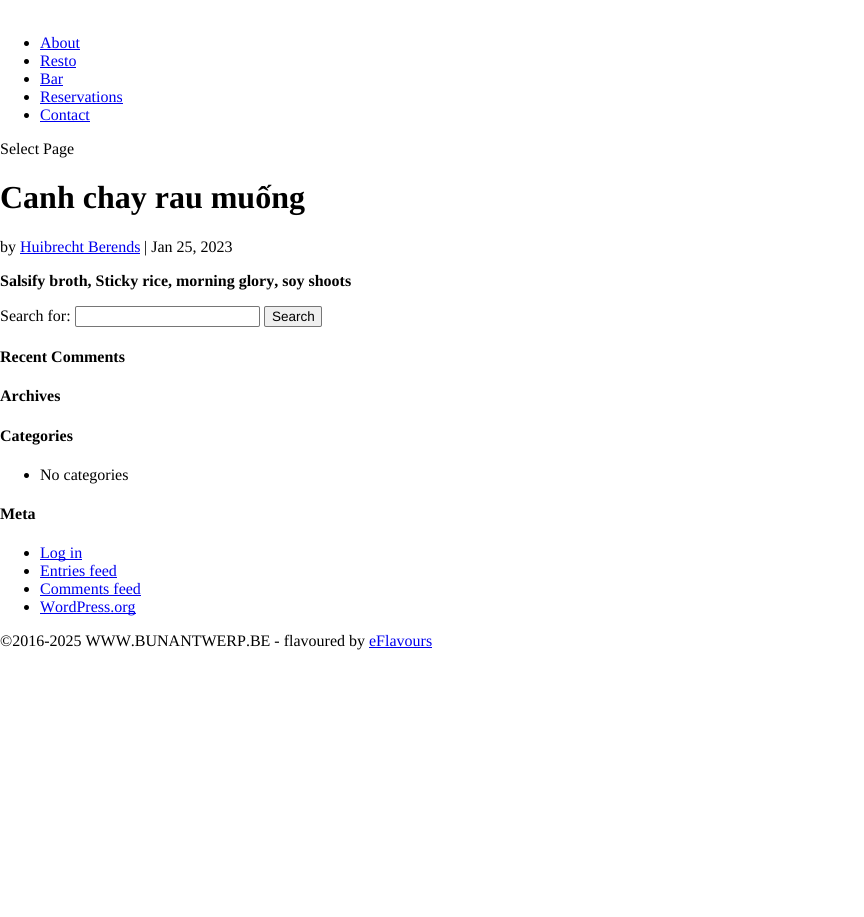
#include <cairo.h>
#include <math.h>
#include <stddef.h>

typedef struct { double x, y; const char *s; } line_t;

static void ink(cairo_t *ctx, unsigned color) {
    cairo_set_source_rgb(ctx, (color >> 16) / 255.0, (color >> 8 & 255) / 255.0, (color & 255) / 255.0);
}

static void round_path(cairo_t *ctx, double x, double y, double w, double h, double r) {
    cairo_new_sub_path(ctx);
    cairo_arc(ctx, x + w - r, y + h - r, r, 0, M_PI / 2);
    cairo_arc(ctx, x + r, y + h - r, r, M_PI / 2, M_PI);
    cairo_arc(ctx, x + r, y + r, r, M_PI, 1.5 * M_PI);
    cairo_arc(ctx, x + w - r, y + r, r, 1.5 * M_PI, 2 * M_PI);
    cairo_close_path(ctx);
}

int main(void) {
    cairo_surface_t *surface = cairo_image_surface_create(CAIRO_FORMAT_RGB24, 864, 917);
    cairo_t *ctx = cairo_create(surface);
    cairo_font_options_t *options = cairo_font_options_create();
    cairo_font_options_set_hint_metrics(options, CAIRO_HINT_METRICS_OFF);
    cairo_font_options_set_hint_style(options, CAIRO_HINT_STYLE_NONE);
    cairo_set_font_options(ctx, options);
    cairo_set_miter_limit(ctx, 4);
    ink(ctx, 0xFFFFFF);
    cairo_paint(ctx);
    ink(ctx, 0x000000);
    cairo_arc(ctx, 26.5, 43.5, 2.5, 0, 2 * M_PI);
    cairo_fill(ctx);
    cairo_select_font_face(ctx, "Liberation Serif", CAIRO_FONT_SLANT_NORMAL, CAIRO_FONT_WEIGHT_NORMAL);
    cairo_set_font_size(ctx, 16);
    ink(ctx, 0x0000EE);
    cairo_move_to(ctx, 40, 48);
    cairo_show_text(ctx, "About");
    cairo_rectangle(ctx, 40, 49, 40, 1);
    cairo_fill(ctx);
    ink(ctx, 0x000000);
    cairo_arc(ctx, 26.5, 61.5, 2.5, 0, 2 * M_PI);
    cairo_fill(ctx);
    ink(ctx, 0x0000EE);
    cairo_move_to(ctx, 40, 66);
    cairo_show_text(ctx, "Resto");
    cairo_rectangle(ctx, 40, 67, 36, 1);
    cairo_fill(ctx);
    ink(ctx, 0x000000);
    cairo_arc(ctx, 26.5, 79.5, 2.5, 0, 2 * M_PI);
    cairo_fill(ctx);
    ink(ctx, 0x0000EE);
    cairo_move_to(ctx, 40, 84);
    cairo_show_text(ctx, "Bar");
    cairo_rectangle(ctx, 40, 85, 23, 1);
    cairo_fill(ctx);
    ink(ctx, 0x000000);
    cairo_arc(ctx, 26.5, 97.5, 2.5, 0, 2 * M_PI);
    cairo_fill(ctx);
    ink(ctx, 0x0000EE);
    cairo_move_to(ctx, 40, 102);
    cairo_show_text(ctx, "Reservations");
    cairo_rectangle(ctx, 40, 103, 83, 1);
    cairo_fill(ctx);
    ink(ctx, 0x000000);
    cairo_arc(ctx, 26.5, 115.5, 2.5, 0, 2 * M_PI);
    cairo_fill(ctx);
    ink(ctx, 0x0000EE);
    cairo_move_to(ctx, 40, 120);
    cairo_show_text(ctx, "Contact");
    cairo_rectangle(ctx, 40, 121, 50, 1);
    cairo_fill(ctx);
    ink(ctx, 0x000000);
    cairo_move_to(ctx, 0, 154);
    cairo_show_text(ctx, "Select Page");
    cairo_select_font_face(ctx, "Liberation Serif", CAIRO_FONT_SLANT_NORMAL, CAIRO_FONT_WEIGHT_BOLD);
    cairo_set_font_size(ctx, 32);
    cairo_move_to(ctx, 0, 208);
    cairo_show_text(ctx, "Canh chay rau muống");
    cairo_select_font_face(ctx, "Liberation Serif", CAIRO_FONT_SLANT_NORMAL, CAIRO_FONT_WEIGHT_NORMAL);
    cairo_set_font_size(ctx, 16);
    cairo_move_to(ctx, 0, 252);
    cairo_show_text(ctx, "by");
    ink(ctx, 0x0000EE);
    cairo_move_to(ctx, 20, 252);
    cairo_show_text(ctx, "Huibrecht Berends");
    cairo_rectangle(ctx, 20, 253, 120, 1);
    cairo_fill(ctx);
    ink(ctx, 0x000000);
    cairo_move_to(ctx, 144, 252);
    cairo_show_text(ctx, "| Jan 25, 2023");
    cairo_select_font_face(ctx, "Liberation Serif", CAIRO_FONT_SLANT_NORMAL, CAIRO_FONT_WEIGHT_BOLD);
    cairo_move_to(ctx, 0, 286);
    cairo_show_text(ctx, "Salsify broth, Sticky rice, morning glory, soy shoots");
    cairo_select_font_face(ctx, "Liberation Serif", CAIRO_FONT_SLANT_NORMAL, CAIRO_FONT_WEIGHT_NORMAL);
    cairo_move_to(ctx, 0, 321);
    cairo_show_text(ctx, "Search for:");
    round_path(ctx, 75.5, 306.5, 184, 20, 1.5);
    ink(ctx, 0x767676);
    cairo_set_line_width(ctx, 1);
    cairo_stroke(ctx);
    ink(ctx, 0xEFEFEF);
    round_path(ctx, 264.5, 306.5, 57, 20, 1.5);
    cairo_fill_preserve(ctx);
    ink(ctx, 0x767676);
    cairo_stroke(ctx);
    cairo_select_font_face(ctx, "Liberation Sans", CAIRO_FONT_SLANT_NORMAL, CAIRO_FONT_WEIGHT_NORMAL);
    cairo_set_font_size(ctx, 13.5);
    ink(ctx, 0x000000);
    cairo_move_to(ctx, 272, 321);
    cairo_show_text(ctx, "Search");
    cairo_select_font_face(ctx, "Liberation Serif", CAIRO_FONT_SLANT_NORMAL, CAIRO_FONT_WEIGHT_BOLD);
    cairo_set_font_size(ctx, 16);
    {
        static const line_t items[] = {
            {0, 362, "Recent Comments"},
            {0, 401, "Archives"},
            {0, 441, "Categories"},
        };
        for (size_t i = 0; i < sizeof items / sizeof *items; i++) {
            cairo_move_to(ctx, items[i].x, items[i].y);
            cairo_show_text(ctx, items[i].s);
        }
    }
    cairo_new_path(ctx);
    cairo_arc(ctx, 26.5, 475.5, 2.5, 0, 2 * M_PI);
    cairo_fill(ctx);
    cairo_select_font_face(ctx, "Liberation Serif", CAIRO_FONT_SLANT_NORMAL, CAIRO_FONT_WEIGHT_NORMAL);
    cairo_move_to(ctx, 40, 480);
    cairo_show_text(ctx, "No categories");
    cairo_select_font_face(ctx, "Liberation Serif", CAIRO_FONT_SLANT_NORMAL, CAIRO_FONT_WEIGHT_BOLD);
    cairo_move_to(ctx, 0, 519);
    cairo_show_text(ctx, "Meta");
    cairo_new_path(ctx);
    cairo_arc(ctx, 26.5, 553.5, 2.5, 0, 2 * M_PI);
    cairo_fill(ctx);
    ink(ctx, 0x0000EE);
    cairo_rectangle(ctx, 40, 559, 42, 1);
    cairo_fill(ctx);
    cairo_select_font_face(ctx, "Liberation Serif", CAIRO_FONT_SLANT_NORMAL, CAIRO_FONT_WEIGHT_NORMAL);
    cairo_move_to(ctx, 40, 558);
    cairo_show_text(ctx, "Log in");
    ink(ctx, 0x000000);
    cairo_new_path(ctx);
    cairo_arc(ctx, 26.5, 571.5, 2.5, 0, 2 * M_PI);
    cairo_fill(ctx);
    ink(ctx, 0x0000EE);
    cairo_move_to(ctx, 40, 576);
    cairo_show_text(ctx, "Entries feed");
    cairo_rectangle(ctx, 40, 577, 77, 1);
    cairo_fill(ctx);
    ink(ctx, 0x000000);
    cairo_arc(ctx, 26.5, 589.5, 2.5, 0, 2 * M_PI);
    cairo_fill(ctx);
    ink(ctx, 0x0000EE);
    cairo_move_to(ctx, 40, 594);
    cairo_show_text(ctx, "Comments feed");
    cairo_rectangle(ctx, 40, 595, 101, 1);
    cairo_fill(ctx);
    ink(ctx, 0x000000);
    cairo_arc(ctx, 26.5, 607.5, 2.5, 0, 2 * M_PI);
    cairo_fill(ctx);
    ink(ctx, 0x0000EE);
    cairo_rectangle(ctx, 40, 613, 96, 1);
    cairo_fill(ctx);
    cairo_move_to(ctx, 40, 612);
    cairo_show_text(ctx, "WordPress.org");
    ink(ctx, 0x000000);
    cairo_move_to(ctx, 0, 646);
    cairo_show_text(ctx, "©2016-2025 WWW.BUNANTWERP.BE - flavoured by");
    ink(ctx, 0x0000EE);
    cairo_move_to(ctx, 369, 646);
    cairo_show_text(ctx, "eFlavours");
    cairo_rectangle(ctx, 369, 647, 63, 1);
    cairo_fill(ctx);
    cairo_surface_write_to_png(surface, "image.png");
    cairo_font_options_destroy(options);
    cairo_destroy(ctx);
    cairo_surface_destroy(surface);
    return 0;
}
